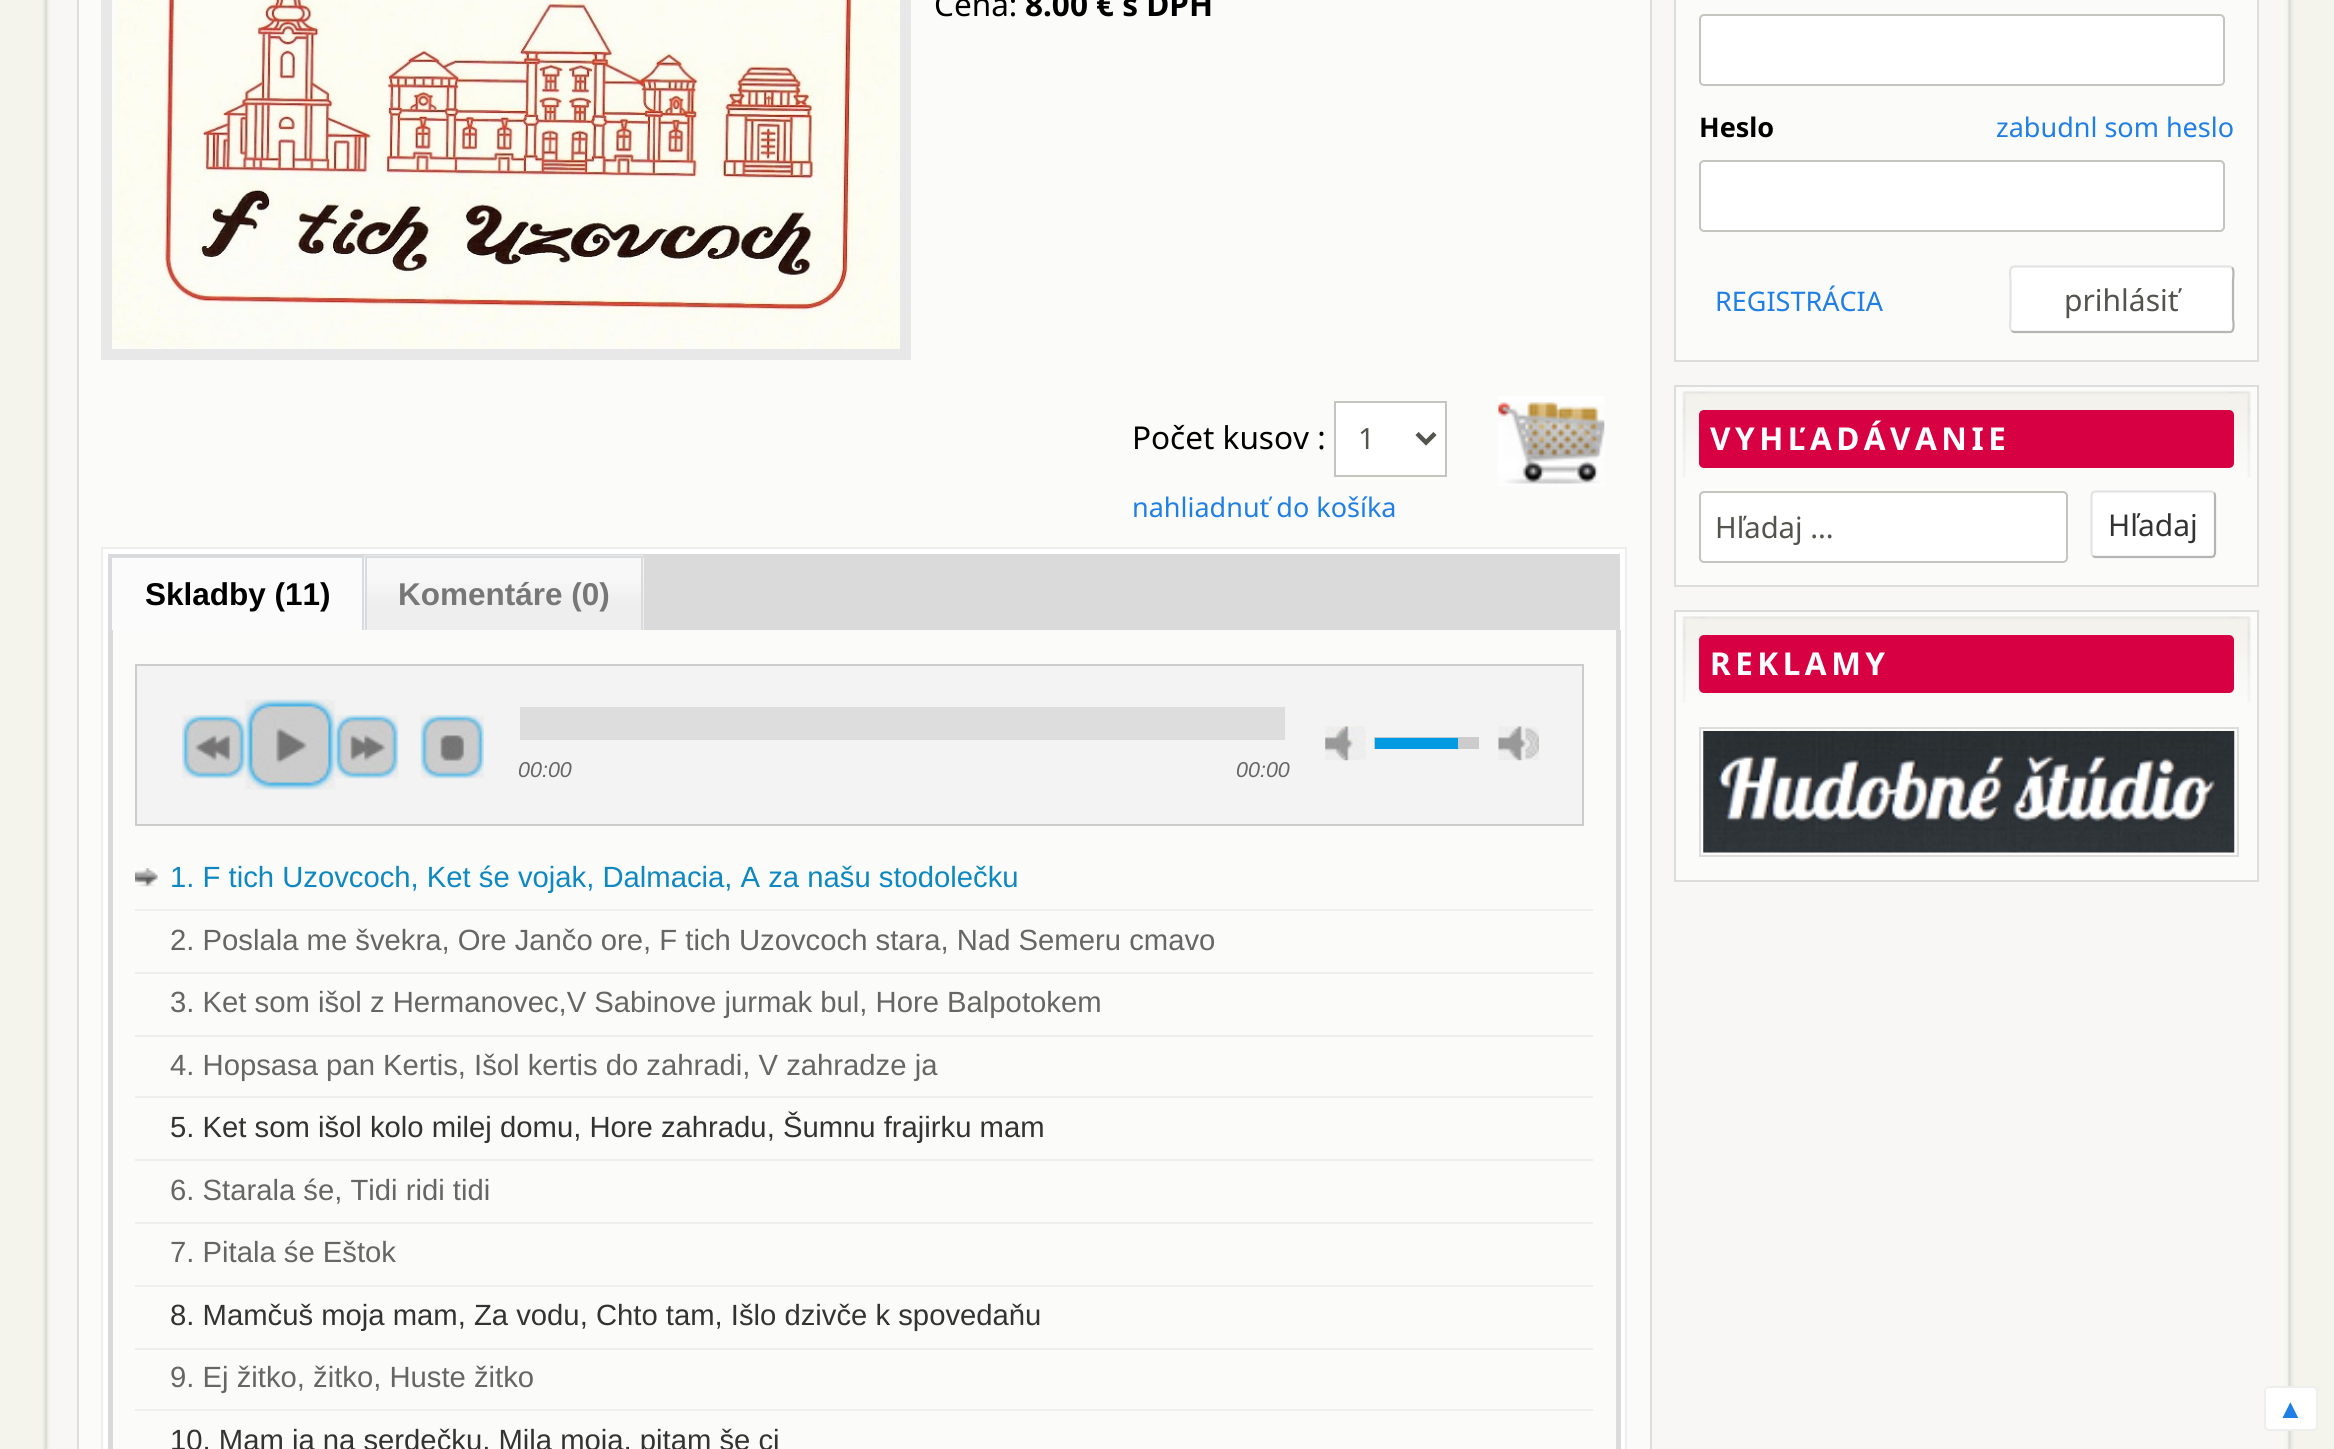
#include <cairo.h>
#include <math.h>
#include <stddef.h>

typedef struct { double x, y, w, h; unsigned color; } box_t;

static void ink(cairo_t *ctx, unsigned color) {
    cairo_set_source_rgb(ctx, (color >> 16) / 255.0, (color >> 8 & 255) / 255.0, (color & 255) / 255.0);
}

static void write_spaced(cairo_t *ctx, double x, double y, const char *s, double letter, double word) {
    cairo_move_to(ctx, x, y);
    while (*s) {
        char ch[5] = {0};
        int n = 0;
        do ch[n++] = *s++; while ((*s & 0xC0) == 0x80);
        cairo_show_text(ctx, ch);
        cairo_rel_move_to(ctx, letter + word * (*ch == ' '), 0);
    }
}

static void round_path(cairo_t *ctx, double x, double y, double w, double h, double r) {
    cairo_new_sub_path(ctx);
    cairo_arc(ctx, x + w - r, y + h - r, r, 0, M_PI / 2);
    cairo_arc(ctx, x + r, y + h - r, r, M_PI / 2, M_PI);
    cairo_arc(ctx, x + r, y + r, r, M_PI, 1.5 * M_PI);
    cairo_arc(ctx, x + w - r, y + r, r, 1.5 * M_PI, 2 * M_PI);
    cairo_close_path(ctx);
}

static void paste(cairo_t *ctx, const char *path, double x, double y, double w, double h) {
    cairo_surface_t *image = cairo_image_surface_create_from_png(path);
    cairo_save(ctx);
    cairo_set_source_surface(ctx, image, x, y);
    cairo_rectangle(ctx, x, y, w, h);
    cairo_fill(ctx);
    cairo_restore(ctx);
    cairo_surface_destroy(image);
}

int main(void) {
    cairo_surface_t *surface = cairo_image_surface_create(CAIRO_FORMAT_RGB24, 2334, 1449);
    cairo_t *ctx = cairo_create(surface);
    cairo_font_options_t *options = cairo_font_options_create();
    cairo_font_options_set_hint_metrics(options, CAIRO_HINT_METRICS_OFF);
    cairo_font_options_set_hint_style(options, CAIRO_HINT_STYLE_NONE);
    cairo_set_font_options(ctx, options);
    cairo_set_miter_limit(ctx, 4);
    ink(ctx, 0xF4F4ED);
    cairo_paint(ctx);
    paste(ctx, "media/1.png", 42, 0, 2252, 1449);
    ink(ctx, 0xFBFBF9);
    cairo_rectangle(ctx, 78, -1, 1573, 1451);
    cairo_fill_preserve(ctx);
    ink(ctx, 0xDDDDDD);
    cairo_stroke(ctx);
    cairo_rectangle(ctx, 106.5, -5.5, 799, 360);
    ink(ctx, 0xE8E8E8);
    cairo_set_line_width(ctx, 11);
    cairo_stroke(ctx);
    paste(ctx, "media/2.png", 112, 0, 788, 349);
    cairo_select_font_face(ctx, "Noto Sans", CAIRO_FONT_SLANT_NORMAL, CAIRO_FONT_WEIGHT_NORMAL);
    cairo_set_font_size(ctx, 31.5);
    ink(ctx, 0x000000);
    cairo_move_to(ctx, 934, 16);
    cairo_show_text(ctx, "Cena:");
    cairo_select_font_face(ctx, "Noto Sans", CAIRO_FONT_SLANT_NORMAL, CAIRO_FONT_WEIGHT_BOLD);
    cairo_move_to(ctx, 1025, 16);
    cairo_show_text(ctx, "8.00 € s DPH");
    cairo_select_font_face(ctx, "Noto Sans", CAIRO_FONT_SLANT_NORMAL, CAIRO_FONT_WEIGHT_NORMAL);
    cairo_move_to(ctx, 1132, 449);
    cairo_show_text(ctx, "Počet kusov :");
    ink(ctx, 0xFFFFFF);
    cairo_rectangle(ctx, 1335, 402, 111, 74);
    cairo_fill_preserve(ctx);
    ink(ctx, 0xC4C5BE);
    cairo_set_line_width(ctx, 2);
    cairo_stroke(ctx);
    cairo_new_path(ctx);
    cairo_move_to(ctx, 1417, 433.5);
    cairo_line_to(ctx, 1426, 442.5);
    cairo_line_to(ctx, 1435, 433.5);
    ink(ctx, 0x53544D);
    cairo_set_line_width(ctx, 4.5);
    cairo_stroke(ctx);
    cairo_set_font_size(ctx, 29.25);
    cairo_move_to(ctx, 1358, 449);
    cairo_show_text(ctx, "1");
    paste(ctx, "media/3.png", 1498, 396, 107, 90);
    cairo_set_font_size(ctx, 27);
    ink(ctx, 0x1F7FE4);
    cairo_move_to(ctx, 1132, 517);
    cairo_show_text(ctx, "nahliadnuť do košíka");
    ink(ctx, 0xFFFFFF);
    cairo_rectangle(ctx, 102, 548, 1524, 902);
    cairo_fill_preserve(ctx);
    ink(ctx, 0xEEEEEE);
    cairo_set_line_width(ctx, 2);
    cairo_stroke(ctx);
    {
        static const box_t items[] = {
            {108, 554, 1512, 76, 0xDADADA},
            {112, 558, 253, 72, 0xFBFBFB},
            {110, 556, 255, 2, 0xD8DCDF},
            {362, 556, 2, 76, 0xD8DCDF},
            {110, 556, 2, 76, 0xD8DCDF},
        };
        for (size_t i = 0; i < sizeof items / sizeof *items; i++) {
            ink(ctx, items[i].color);
            cairo_rectangle(ctx, items[i].x, items[i].y, items[i].w, items[i].h);
            cairo_fill(ctx);
        }
    }
    cairo_select_font_face(ctx, "Liberation Sans", CAIRO_FONT_SLANT_NORMAL, CAIRO_FONT_WEIGHT_BOLD);
    cairo_set_font_size(ctx, 31.5);
    ink(ctx, 0x000000);
    cairo_move_to(ctx, 145, 605);
    cairo_show_text(ctx, "Skladby (11)");
    ink(ctx, 0xEEEEEE);
    cairo_rectangle(ctx, 367, 558, 277, 72);
    cairo_fill(ctx);
    paste(ctx, "media/4.png", 364, 555, 280, 75);
    {
        static const box_t items[] = {
            {365, 556, 279, 2, 0xD8DCDF},
            {641, 556, 2, 74, 0xD8DCDF},
            {365, 556, 2, 74, 0xD8DCDF},
        };
        for (size_t i = 0; i < sizeof items / sizeof *items; i++) {
            ink(ctx, items[i].color);
            cairo_rectangle(ctx, items[i].x, items[i].y, items[i].w, items[i].h);
            cairo_fill(ctx);
        }
    }
    ink(ctx, 0x777777);
    cairo_move_to(ctx, 398, 605);
    cairo_show_text(ctx, "Komentáre (0)");
    {
        static const box_t items[] = {
            {113, 630, 1503, 819, 0xFBFBF9},
            {1616, 630, 5, 819, 0xDADADA},
            {108, 630, 5, 819, 0xDADADA},
        };
        for (size_t i = 0; i < sizeof items / sizeof *items; i++) {
            ink(ctx, items[i].color);
            cairo_rectangle(ctx, items[i].x, items[i].y, items[i].w, items[i].h);
            cairo_fill(ctx);
        }
    }
    ink(ctx, 0xF3F3F3);
    cairo_rectangle(ctx, 136, 665, 1447, 160);
    cairo_fill_preserve(ctx);
    ink(ctx, 0xCCCCCC);
    cairo_stroke(ctx);
    paste(ctx, "media/6.png", 245, 699, 91, 91);
    paste(ctx, "media/5.png", 182, 715, 64, 64);
    paste(ctx, "media/7.png", 335, 715, 64, 64);
    paste(ctx, "media/8.png", 420, 715, 64, 64);
    paste(ctx, "media/9.png", 1325, 726, 41, 35);
    paste(ctx, "media/10.png", 1498, 726, 41, 35);
    ink(ctx, 0xDDDDDD);
    cairo_rectangle(ctx, 520, 707, 765, 33);
    cairo_fill(ctx);
    ink(ctx, 0xCCCCCC);
    cairo_rectangle(ctx, 1374, 737, 105, 12);
    cairo_fill(ctx);
    paste(ctx, "media/11.png", 1374, 737, 84, 12);
    cairo_select_font_face(ctx, "Liberation Sans", CAIRO_FONT_SLANT_ITALIC, CAIRO_FONT_WEIGHT_NORMAL);
    cairo_set_font_size(ctx, 21.5);
    ink(ctx, 0x666666);
    cairo_move_to(ctx, 518, 777);
    cairo_show_text(ctx, "00:00");
    cairo_move_to(ctx, 1236, 777);
    cairo_show_text(ctx, "00:00");
    ink(ctx, 0xEEEEEE);
    cairo_rectangle(ctx, 135, 909, 1458, 2);
    cairo_fill(ctx);
    paste(ctx, "media/12.png", 135, 868, 23, 19);
    cairo_select_font_face(ctx, "Liberation Sans", CAIRO_FONT_SLANT_NORMAL, CAIRO_FONT_WEIGHT_NORMAL);
    cairo_set_font_size(ctx, 29.25);
    ink(ctx, 0x0D88C1);
    cairo_move_to(ctx, 170, 887);
    cairo_show_text(ctx, "1. F tich Uzovcoch, Ket śe vojak, Dalmacia, A za našu stodolečku");
    ink(ctx, 0xEEEEEE);
    cairo_rectangle(ctx, 135, 972, 1458, 2);
    cairo_fill(ctx);
    ink(ctx, 0x666666);
    cairo_move_to(ctx, 170, 950);
    cairo_show_text(ctx, "2. Poslala me švekra, Ore Jančo ore, F tich Uzovcoch stara, Nad Semeru cmavo");
    ink(ctx, 0xEEEEEE);
    cairo_rectangle(ctx, 135, 1035, 1458, 2);
    cairo_fill(ctx);
    ink(ctx, 0x666666);
    cairo_move_to(ctx, 170, 1012);
    cairo_show_text(ctx, "3. Ket som išol z Hermanovec,V Sabinove jurmak bul, Hore Balpotokem");
    ink(ctx, 0xEEEEEE);
    cairo_rectangle(ctx, 135, 1096, 1458, 2);
    cairo_fill(ctx);
    ink(ctx, 0x666666);
    cairo_move_to(ctx, 170, 1075);
    cairo_show_text(ctx, "4. Hopsasa pan Kertis, Išol kertis do zahradi, V zahradze ja");
    ink(ctx, 0xEEEEEE);
    cairo_rectangle(ctx, 135, 1159, 1458, 2);
    cairo_fill(ctx);
    ink(ctx, 0x333333);
    cairo_move_to(ctx, 170, 1137);
    cairo_show_text(ctx, "5. Ket som išol kolo milej domu, Hore zahradu, Šumnu frajirku mam");
    ink(ctx, 0xEEEEEE);
    cairo_rectangle(ctx, 135, 1222, 1458, 2);
    cairo_fill(ctx);
    ink(ctx, 0x666666);
    cairo_move_to(ctx, 170, 1200);
    cairo_show_text(ctx, "6. Starala śe, Tidi ridi tidi");
    ink(ctx, 0xEEEEEE);
    cairo_rectangle(ctx, 135, 1285, 1458, 2);
    cairo_fill(ctx);
    ink(ctx, 0x666666);
    cairo_move_to(ctx, 170, 1262);
    cairo_show_text(ctx, "7. Pitala śe Eštok");
    ink(ctx, 0xEEEEEE);
    cairo_rectangle(ctx, 135, 1348, 1458, 2);
    cairo_fill(ctx);
    ink(ctx, 0x333333);
    cairo_move_to(ctx, 170, 1325);
    cairo_show_text(ctx, "8. Mamčuš moja mam, Za vodu, Chto tam, Išlo dzivče k spovedaňu");
    ink(ctx, 0xEEEEEE);
    cairo_rectangle(ctx, 135, 1409, 1458, 2);
    cairo_fill(ctx);
    ink(ctx, 0x666666);
    cairo_move_to(ctx, 170, 1387);
    cairo_show_text(ctx, "9. Ej žitko, žitko, Huste žitko");
    ink(ctx, 0x333333);
    cairo_move_to(ctx, 170, 1450);
    cairo_show_text(ctx, "10. Mam ja na serdečku, Mila moja, pitam še ci");
    ink(ctx, 0xFBFBF9);
    cairo_rectangle(ctx, 1675, -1, 583, 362);
    cairo_fill_preserve(ctx);
    ink(ctx, 0xDDDDDD);
    cairo_stroke(ctx);
    ink(ctx, 0xFFFFFF);
    round_path(ctx, 1700, 15, 524, 70, 4);
    cairo_fill_preserve(ctx);
    ink(ctx, 0xC4C5BE);
    cairo_stroke(ctx);
    cairo_select_font_face(ctx, "Noto Sans", CAIRO_FONT_SLANT_NORMAL, CAIRO_FONT_WEIGHT_BOLD);
    cairo_set_font_size(ctx, 27);
    ink(ctx, 0x000000);
    cairo_move_to(ctx, 1699, 137);
    cairo_show_text(ctx, "Heslo");
    cairo_select_font_face(ctx, "Noto Sans", CAIRO_FONT_SLANT_NORMAL, CAIRO_FONT_WEIGHT_NORMAL);
    ink(ctx, 0x1F7FE4);
    cairo_move_to(ctx, 1996, 137);
    cairo_show_text(ctx, "zabudnl som heslo");
    ink(ctx, 0xFFFFFF);
    round_path(ctx, 1700, 161, 524, 70, 4);
    cairo_fill_preserve(ctx);
    ink(ctx, 0xC4C5BE);
    cairo_stroke(ctx);
    ink(ctx, 0x1F7FE4);
    cairo_move_to(ctx, 1715, 311);
    cairo_show_text(ctx, "REGISTRÁCIA");
    ink(ctx, 0xFFFFFF);
    round_path(ctx, 2009, 266, 225, 67, 5);
    cairo_fill(ctx);
    cairo_new_path(ctx);
    cairo_move_to(ctx, 2232, 267.5);
    cairo_curve_to(ctx, 2234.5, 270, 2233, 278.5, 2233, 280);
    cairo_line_to(ctx, 2233, 319);
    cairo_curve_to(ctx, 2233, 320, 2235.5, 332, 2230, 332);
    cairo_line_to(ctx, 2014, 332);
    cairo_line_to(ctx, 2011.5, 331);
    ink(ctx, 0xB5B5B5);
    cairo_set_line_width(ctx, 2.2);
    cairo_stroke(ctx);
    cairo_new_path(ctx);
    cairo_move_to(ctx, 2011.5, 331);
    cairo_curve_to(ctx, 2009, 328.5, 2010.5, 320, 2010.5, 319);
    cairo_line_to(ctx, 2010.5, 280);
    cairo_curve_to(ctx, 2010.5, 278.5, 2008, 266.5, 2014, 266.5);
    cairo_line_to(ctx, 2230, 266.5);
    cairo_line_to(ctx, 2232, 267.5);
    ink(ctx, 0xE3E3E3);
    cairo_stroke(ctx);
    cairo_set_font_size(ctx, 30);
    ink(ctx, 0x53544D);
    cairo_move_to(ctx, 2064, 311);
    cairo_show_text(ctx, "prihlásiť");
    ink(ctx, 0xFBFBF9);
    cairo_rectangle(ctx, 1676, 387, 581, 198);
    cairo_fill(ctx);
    paste(ctx, "media/13.png", 1682, 391, 569, 87);
    cairo_rectangle(ctx, 1675, 386, 583, 200);
    ink(ctx, 0xDDDDDD);
    cairo_set_line_width(ctx, 2);
    cairo_stroke(ctx);
    ink(ctx, 0xD60043);
    round_path(ctx, 1699, 410, 535, 58, 5);
    cairo_fill(ctx);
    cairo_select_font_face(ctx, "Noto Sans", CAIRO_FONT_SLANT_NORMAL, CAIRO_FONT_WEIGHT_BOLD);
    cairo_set_font_size(ctx, 31.5);
    ink(ctx, 0xFFFFFF);
    write_spaced(ctx, 1710, 450, "VYHĽADÁVANIE", 4.5, 0);
    round_path(ctx, 1700, 492, 367, 70, 4);
    cairo_fill_preserve(ctx);
    ink(ctx, 0xC4C5BE);
    cairo_stroke(ctx);
    cairo_select_font_face(ctx, "Noto Sans", CAIRO_FONT_SLANT_NORMAL, CAIRO_FONT_WEIGHT_NORMAL);
    cairo_set_font_size(ctx, 29.25);
    ink(ctx, 0x53544D);
    cairo_move_to(ctx, 1715, 538);
    cairo_show_text(ctx, "Hľadaj ...");
    ink(ctx, 0xFFFFFF);
    round_path(ctx, 2090, 491, 126, 67, 5);
    cairo_fill(ctx);
    cairo_new_path(ctx);
    cairo_move_to(ctx, 2214, 492.5);
    cairo_line_to(ctx, 2215, 495);
    cairo_line_to(ctx, 2215, 553.5);
    cairo_line_to(ctx, 2214, 556);
    cairo_line_to(ctx, 2212, 557);
    cairo_line_to(ctx, 2095, 557);
    cairo_line_to(ctx, 2092.5, 556);
    ink(ctx, 0xB5B5B5);
    cairo_set_line_width(ctx, 2.2);
    cairo_stroke(ctx);
    cairo_new_path(ctx);
    cairo_move_to(ctx, 2092.5, 556);
    cairo_line_to(ctx, 2091.5, 553.5);
    cairo_line_to(ctx, 2091.5, 495);
    cairo_line_to(ctx, 2092.5, 492.5);
    cairo_line_to(ctx, 2095, 491.5);
    cairo_line_to(ctx, 2212, 491.5);
    cairo_line_to(ctx, 2214, 492.5);
    ink(ctx, 0xE3E3E3);
    cairo_stroke(ctx);
    cairo_set_font_size(ctx, 30);
    ink(ctx, 0x333333);
    cairo_move_to(ctx, 2108, 536);
    cairo_show_text(ctx, "Hľadaj");
    ink(ctx, 0xFBFBF9);
    cairo_rectangle(ctx, 1676, 612, 581, 268);
    cairo_fill(ctx);
    paste(ctx, "media/13.png", 1682, 616, 569, 87);
    cairo_rectangle(ctx, 1675, 611, 583, 270);
    ink(ctx, 0xDDDDDD);
    cairo_set_line_width(ctx, 2);
    cairo_stroke(ctx);
    ink(ctx, 0xD60043);
    round_path(ctx, 1699, 635, 535, 58, 5);
    cairo_fill(ctx);
    cairo_select_font_face(ctx, "Noto Sans", CAIRO_FONT_SLANT_NORMAL, CAIRO_FONT_WEIGHT_BOLD);
    cairo_set_font_size(ctx, 31.5);
    ink(ctx, 0xFFFFFF);
    write_spaced(ctx, 1710, 675, "REKLAMY", 4.5, 0);
    cairo_rectangle(ctx, 1700, 728, 538, 128);
    ink(ctx, 0xDDDDDD);
    cairo_stroke(ctx);
    paste(ctx, "media/14.png", 1703, 731, 532, 122);
    ink(ctx, 0xFFFFFF);
    round_path(ctx, 2265, 1387, 52, 43, 4);
    cairo_fill_preserve(ctx);
    ink(ctx, 0xEEEEEE);
    cairo_stroke(ctx);
    cairo_select_font_face(ctx, "Liberation Sans", CAIRO_FONT_SLANT_NORMAL, CAIRO_FONT_WEIGHT_NORMAL);
    cairo_set_font_size(ctx, 27);
    ink(ctx, 0x1F7FE4);
    cairo_move_to(ctx, 2277, 1418);
    cairo_show_text(ctx, "▲");
    cairo_surface_write_to_png(surface, "image.png");
    cairo_font_options_destroy(options);
    cairo_destroy(ctx);
    cairo_surface_destroy(surface);
    return 0;
}
